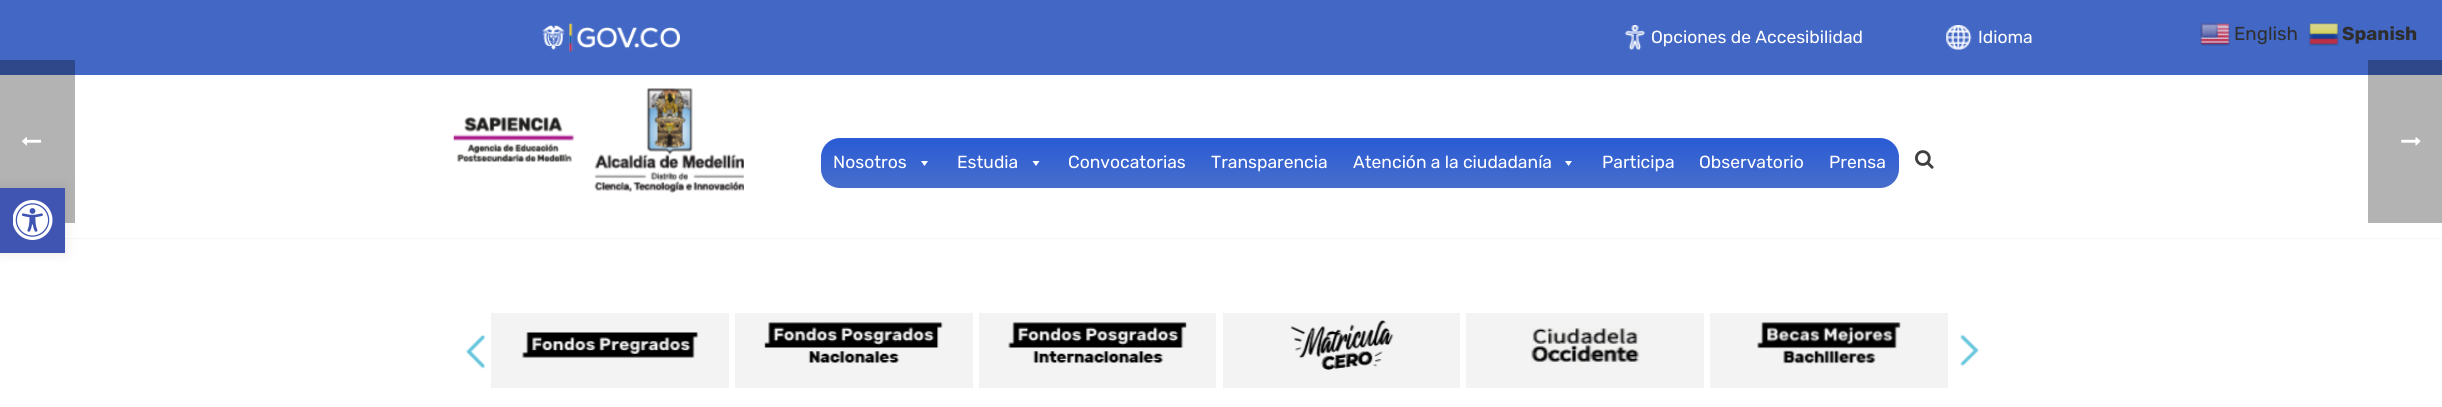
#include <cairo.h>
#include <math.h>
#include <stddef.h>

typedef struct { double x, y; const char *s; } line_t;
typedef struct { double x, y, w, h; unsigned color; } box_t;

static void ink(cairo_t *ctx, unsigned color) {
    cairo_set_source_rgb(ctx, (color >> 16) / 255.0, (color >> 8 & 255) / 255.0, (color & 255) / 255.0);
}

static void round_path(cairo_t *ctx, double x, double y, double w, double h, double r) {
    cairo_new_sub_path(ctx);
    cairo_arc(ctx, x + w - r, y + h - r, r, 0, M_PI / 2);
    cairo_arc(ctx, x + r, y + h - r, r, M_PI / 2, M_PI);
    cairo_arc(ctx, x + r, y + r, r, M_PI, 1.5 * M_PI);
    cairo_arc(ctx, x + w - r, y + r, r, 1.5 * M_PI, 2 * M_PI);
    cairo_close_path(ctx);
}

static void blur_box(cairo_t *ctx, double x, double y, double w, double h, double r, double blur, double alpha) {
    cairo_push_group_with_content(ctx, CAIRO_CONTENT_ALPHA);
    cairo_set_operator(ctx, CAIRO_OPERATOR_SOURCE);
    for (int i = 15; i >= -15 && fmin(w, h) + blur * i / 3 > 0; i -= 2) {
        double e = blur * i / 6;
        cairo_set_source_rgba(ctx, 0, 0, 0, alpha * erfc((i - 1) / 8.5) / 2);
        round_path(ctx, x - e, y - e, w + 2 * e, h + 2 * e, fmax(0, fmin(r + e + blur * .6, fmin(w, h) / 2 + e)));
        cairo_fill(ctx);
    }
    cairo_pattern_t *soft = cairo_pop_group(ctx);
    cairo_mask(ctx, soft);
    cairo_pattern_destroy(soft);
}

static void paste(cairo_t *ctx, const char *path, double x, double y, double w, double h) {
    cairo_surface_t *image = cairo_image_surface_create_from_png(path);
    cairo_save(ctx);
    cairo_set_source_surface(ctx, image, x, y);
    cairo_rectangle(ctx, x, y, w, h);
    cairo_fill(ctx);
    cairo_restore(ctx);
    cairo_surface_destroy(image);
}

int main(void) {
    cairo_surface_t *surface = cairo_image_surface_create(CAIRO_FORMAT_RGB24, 2442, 407);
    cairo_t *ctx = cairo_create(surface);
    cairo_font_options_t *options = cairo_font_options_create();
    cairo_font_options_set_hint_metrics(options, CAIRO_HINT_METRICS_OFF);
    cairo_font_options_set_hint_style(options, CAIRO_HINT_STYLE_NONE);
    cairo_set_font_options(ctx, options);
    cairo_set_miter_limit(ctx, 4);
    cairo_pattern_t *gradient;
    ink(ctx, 0xFFFFFF);
    cairo_paint(ctx);
    {
        static const box_t items[] = {
            {0, 0, 2442, 75, 0x4267C5},
            {2368, 60, 74, 15, 0x2E488A},
            {0, 60, 75, 15, 0x2E488A},
        };
        for (size_t i = 0; i < sizeof items / sizeof *items; i++) {
            ink(ctx, items[i].color);
            cairo_rectangle(ctx, items[i].x, items[i].y, items[i].w, items[i].h);
            cairo_fill(ctx);
        }
    }
    paste(ctx, "media/1.png", 542, 23, 138, 29);
    paste(ctx, "media/2.png", 1625, 25, 20, 25);
    cairo_select_font_face(ctx, "Rubik", CAIRO_FONT_SLANT_NORMAL, CAIRO_FONT_WEIGHT_NORMAL);
    cairo_set_font_size(ctx, 17.5);
    ink(ctx, 0xFFFFFF);
    cairo_move_to(ctx, 1651, 43);
    cairo_show_text(ctx, "Opciones de Accesibilidad");
    paste(ctx, "media/3.png", 1946, 25, 26, 25);
    cairo_move_to(ctx, 1978, 43);
    cairo_show_text(ctx, "Idioma");
    paste(ctx, "media/4.png", 2200, 22, 30, 24);
    cairo_set_font_size(ctx, 18.75);
    ink(ctx, 0x2E2E2E);
    cairo_move_to(ctx, 2234, 40);
    cairo_show_text(ctx, "English");
    paste(ctx, "media/5.png", 2308, 22, 31, 24);
    cairo_select_font_face(ctx, "Rubik", CAIRO_FONT_SLANT_NORMAL, CAIRO_FONT_WEIGHT_BOLD);
    cairo_move_to(ctx, 2342, 40);
    cairo_show_text(ctx, "Spanish");
    ink(ctx, 0xB3B3B3);
    cairo_rectangle(ctx, 0, 75, 75, 148);
    cairo_fill(ctx);
    paste(ctx, "media/6.png", 22, 137, 19, 9);
    cairo_rectangle(ctx, 2368, 75, 74, 148);
    cairo_fill(ctx);
    paste(ctx, "media/7.png", 2401, 137, 20, 9);
    ink(ctx, 0xF7F7F7);
    cairo_rectangle(ctx, 65, 238, 2377, 1);
    cairo_fill(ctx);
    paste(ctx, "media/8.png", 453, 88, 291, 105);
    gradient = cairo_pattern_create_linear(1360, 137, 1360, 188);
    cairo_pattern_add_color_stop_rgba(gradient, 0, 0.161, 0.357, 0.839, 1);
    cairo_pattern_add_color_stop_rgba(gradient, 1, 0.282, 0.431, 0.796, 1);
    cairo_set_source(ctx, gradient);
    cairo_pattern_destroy(gradient);
    round_path(ctx, 821, 138, 1078, 50, 19);
    cairo_fill(ctx);
    cairo_select_font_face(ctx, "Rubik", CAIRO_FONT_SLANT_NORMAL, CAIRO_FONT_WEIGHT_NORMAL);
    cairo_set_font_size(ctx, 17.5);
    ink(ctx, 0xFFFFFF);
    cairo_move_to(ctx, 833, 168);
    cairo_show_text(ctx, "Nosotros");
    cairo_new_path(ctx);
    cairo_move_to(ctx, 928, 161);
    cairo_line_to(ctx, 924.5, 166);
    cairo_line_to(ctx, 921, 161);
    cairo_close_path(ctx);
    cairo_fill(ctx);
    cairo_move_to(ctx, 957, 168);
    cairo_show_text(ctx, "Estudia");
    cairo_new_path(ctx);
    cairo_move_to(ctx, 1039.5, 161);
    cairo_line_to(ctx, 1036, 166);
    cairo_line_to(ctx, 1032.5, 161);
    cairo_close_path(ctx);
    cairo_fill(ctx);
    {
        static const line_t items[] = {
            {1068, 168, "Convocatorias"},
            {1211, 168, "Transparencia"},
            {1353, 168, "Atención a la ciudadanía"},
        };
        for (size_t i = 0; i < sizeof items / sizeof *items; i++) {
            cairo_move_to(ctx, items[i].x, items[i].y);
            cairo_show_text(ctx, items[i].s);
        }
    }
    cairo_new_path(ctx);
    cairo_move_to(ctx, 1572, 161);
    cairo_line_to(ctx, 1568.5, 166);
    cairo_line_to(ctx, 1565, 161);
    cairo_close_path(ctx);
    cairo_fill(ctx);
    {
        static const line_t items[] = {
            {1602, 168, "Participa"},
            {1699, 168, "Observatorio"},
            {1829, 168, "Prensa"},
        };
        for (size_t i = 0; i < sizeof items / sizeof *items; i++) {
            cairo_move_to(ctx, items[i].x, items[i].y);
            cairo_show_text(ctx, items[i].s);
        }
    }
    paste(ctx, "media/9.png", 1915, 150, 19, 19);
    ink(ctx, 0x000000);
    blur_box(ctx, 0, 188, 65, 65, 0, 6, 0.1);
    ink(ctx, 0x4054B2);
    cairo_rectangle(ctx, 0, 188, 65, 65);
    cairo_fill(ctx);
    paste(ctx, "media/10.png", 13, 200, 40, 40);
    paste(ctx, "media/11.png", 466, 335, 19, 34);
    ink(ctx, 0xF3F3F3);
    cairo_rectangle(ctx, 491, 313, 238, 75);
    cairo_fill(ctx);
    paste(ctx, "media/12.png", 522, 332, 177, 26);
    cairo_rectangle(ctx, 735, 313, 238, 75);
    cairo_fill(ctx);
    paste(ctx, "media/13.png", 764, 322, 179, 41);
    cairo_rectangle(ctx, 979, 313, 237, 75);
    cairo_fill(ctx);
    paste(ctx, "media/14.png", 1008, 322, 179, 41);
    cairo_rectangle(ctx, 1223, 313, 237, 75);
    cairo_fill(ctx);
    paste(ctx, "media/15.png", 1290, 320, 104, 50);
    cairo_rectangle(ctx, 1466, 313, 238, 75);
    cairo_fill(ctx);
    paste(ctx, "media/16.png", 1531, 328, 110, 36);
    cairo_rectangle(ctx, 1710, 313, 238, 75);
    cairo_fill(ctx);
    paste(ctx, "media/17.png", 1757, 322, 144, 42);
    paste(ctx, "media/18.png", 1960, 334, 19, 32);
    cairo_surface_write_to_png(surface, "image.png");
    cairo_font_options_destroy(options);
    cairo_destroy(ctx);
    cairo_surface_destroy(surface);
    return 0;
}
